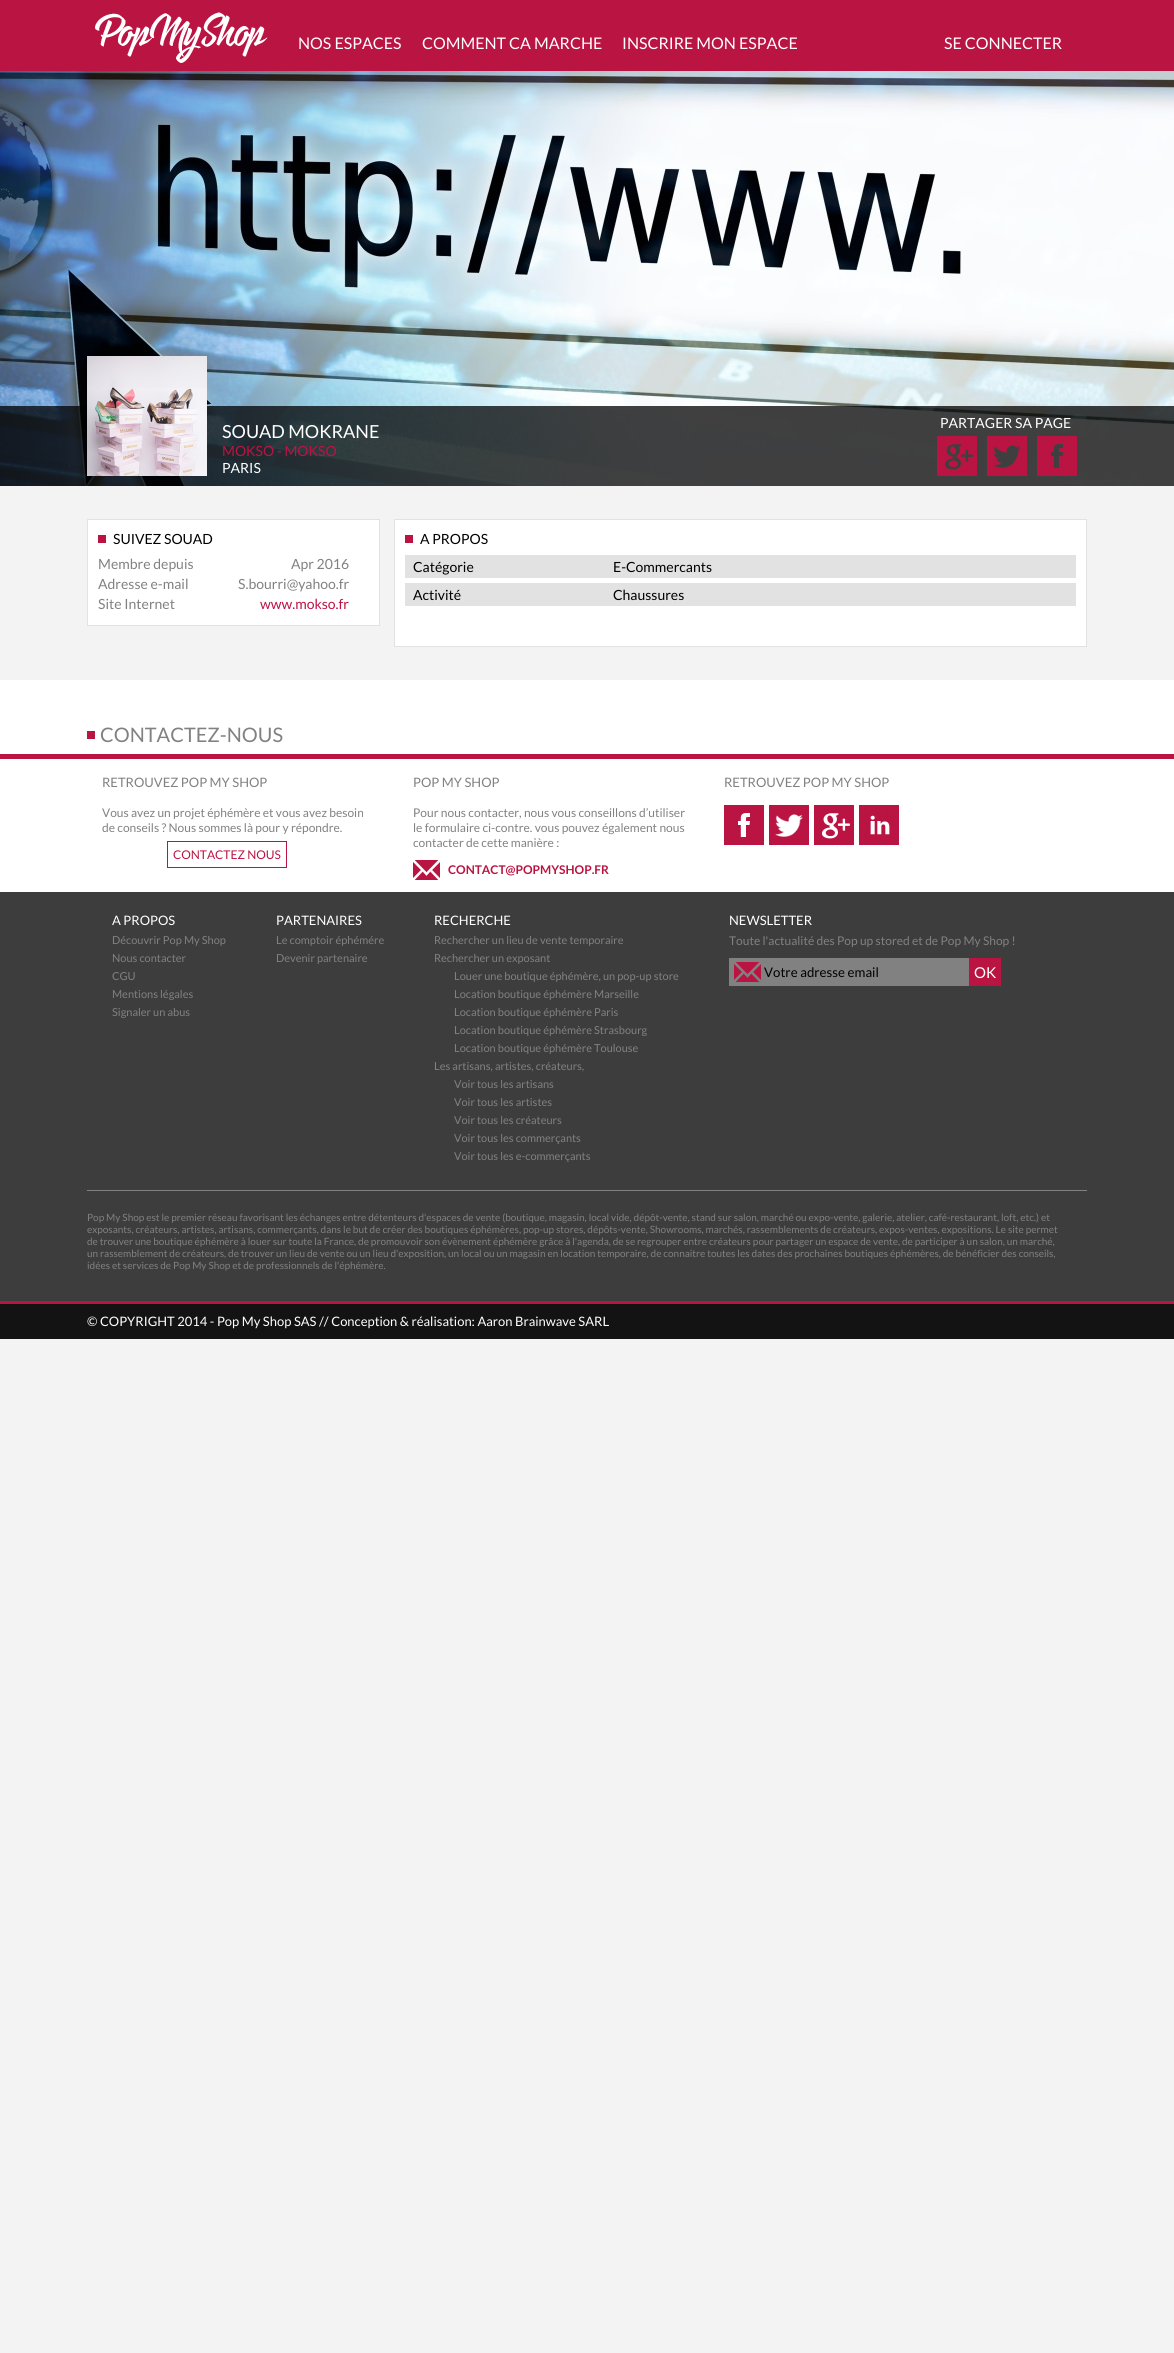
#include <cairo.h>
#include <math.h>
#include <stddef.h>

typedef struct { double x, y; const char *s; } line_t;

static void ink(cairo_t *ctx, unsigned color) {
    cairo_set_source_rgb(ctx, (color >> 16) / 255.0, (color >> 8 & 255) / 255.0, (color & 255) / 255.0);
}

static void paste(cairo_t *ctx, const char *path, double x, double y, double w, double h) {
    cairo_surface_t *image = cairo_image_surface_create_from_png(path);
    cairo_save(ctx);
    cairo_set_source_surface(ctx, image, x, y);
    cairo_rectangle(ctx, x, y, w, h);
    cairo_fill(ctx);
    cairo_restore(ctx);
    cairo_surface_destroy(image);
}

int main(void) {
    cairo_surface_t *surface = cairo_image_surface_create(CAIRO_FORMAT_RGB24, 1174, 2353);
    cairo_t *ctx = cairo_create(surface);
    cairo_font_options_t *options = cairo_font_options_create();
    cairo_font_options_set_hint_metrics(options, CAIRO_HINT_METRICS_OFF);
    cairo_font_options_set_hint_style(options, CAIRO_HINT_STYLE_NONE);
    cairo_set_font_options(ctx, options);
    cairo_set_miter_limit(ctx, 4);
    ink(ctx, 0xF3F3F3);
    cairo_paint(ctx);
    ink(ctx, 0xBA1443);
    cairo_rectangle(ctx, 0, 0, 1174, 71);
    cairo_fill(ctx);
    paste(ctx, "media/1.png", 95, 12, 173, 51);
    cairo_select_font_face(ctx, "Lato", CAIRO_FONT_SLANT_NORMAL, CAIRO_FONT_WEIGHT_NORMAL);
    cairo_set_font_size(ctx, 16);
    ink(ctx, 0xFFFFFF);
    {
        static const line_t items[] = {
            {298, 49, "NOS ESPACES"},
            {422, 49, "COMMENT CA MARCHE"},
            {622, 49, "INSCRIRE MON ESPACE"},
            {944, 49, "SE CONNECTER"},
        };
        for (size_t i = 0; i < sizeof items / sizeof *items; i++) {
            cairo_move_to(ctx, items[i].x, items[i].y);
            cairo_show_text(ctx, items[i].s);
        }
    }
    paste(ctx, "media/2.png", 0, 71, 1174, 415);
    cairo_set_source_rgba(ctx, 0, 0, 0, 0.75);
    cairo_rectangle(ctx, 0, 406, 1174, 80);
    cairo_fill(ctx);
    paste(ctx, "media/3.png", 87, 356, 120, 120);
    cairo_set_font_size(ctx, 18);
    ink(ctx, 0xFFFFFF);
    cairo_move_to(ctx, 222, 438);
    cairo_show_text(ctx, "SOUAD MOKRANE");
    cairo_set_font_size(ctx, 14);
    ink(ctx, 0xBA1443);
    cairo_move_to(ctx, 222, 456);
    cairo_show_text(ctx, "MOKSO - MOKSO");
    ink(ctx, 0xFFFFFF);
    cairo_move_to(ctx, 222, 473);
    cairo_show_text(ctx, "PARIS");
    cairo_move_to(ctx, 940, 428);
    cairo_show_text(ctx, "PARTAGER SA PAGE");
    paste(ctx, "media/4.png", 937, 436, 40, 40);
    paste(ctx, "media/5.png", 987, 436, 40, 40);
    paste(ctx, "media/6.png", 1037, 436, 40, 40);
    cairo_rectangle(ctx, 87.5, 519.5, 292, 106);
    cairo_fill_preserve(ctx);
    ink(ctx, 0xE2E2E2);
    cairo_set_line_width(ctx, 1);
    cairo_stroke(ctx);
    ink(ctx, 0xBA1443);
    cairo_rectangle(ctx, 98, 535, 8, 8);
    cairo_fill(ctx);
    ink(ctx, 0x000000);
    cairo_move_to(ctx, 113, 544);
    cairo_show_text(ctx, "SUIVEZ SOUAD");
    ink(ctx, 0x818181);
    {
        static const line_t items[] = {
            {98, 569, "Membre depuis"},
            {291, 569, "Apr 2016"},
            {98, 589, "Adresse e-mail"},
            {238, 589, "S.bourri@yahoo.fr"},
            {98, 609, "Site Internet"},
        };
        for (size_t i = 0; i < sizeof items / sizeof *items; i++) {
            cairo_move_to(ctx, items[i].x, items[i].y);
            cairo_show_text(ctx, items[i].s);
        }
    }
    ink(ctx, 0xBA1443);
    cairo_move_to(ctx, 260, 609);
    cairo_show_text(ctx, "www.mokso.fr");
    ink(ctx, 0xFFFFFF);
    cairo_rectangle(ctx, 394.5, 519.5, 692, 127);
    cairo_fill_preserve(ctx);
    ink(ctx, 0xE2E2E2);
    cairo_stroke(ctx);
    ink(ctx, 0xBA1443);
    cairo_rectangle(ctx, 405, 535, 8, 8);
    cairo_fill(ctx);
    ink(ctx, 0x000000);
    cairo_move_to(ctx, 420, 544);
    cairo_show_text(ctx, "A PROPOS");
    ink(ctx, 0xE2E2E2);
    cairo_rectangle(ctx, 405, 555, 671, 23);
    cairo_fill(ctx);
    ink(ctx, 0x000000);
    cairo_move_to(ctx, 413, 572);
    cairo_show_text(ctx, "Catégorie");
    cairo_move_to(ctx, 613, 572);
    cairo_show_text(ctx, "E-Commercants");
    ink(ctx, 0xE2E2E2);
    cairo_rectangle(ctx, 405, 583, 671, 23);
    cairo_fill(ctx);
    ink(ctx, 0x000000);
    cairo_move_to(ctx, 413, 600);
    cairo_show_text(ctx, "Activité");
    cairo_move_to(ctx, 613, 600);
    cairo_show_text(ctx, "Chaussures");
    ink(ctx, 0xFFFFFF);
    cairo_rectangle(ctx, 0, 680, 1174, 212);
    cairo_fill(ctx);
    ink(ctx, 0xBA1443);
    cairo_rectangle(ctx, 87, 731, 8, 8);
    cairo_fill(ctx);
    cairo_set_font_size(ctx, 20);
    ink(ctx, 0x818181);
    cairo_move_to(ctx, 100, 742);
    cairo_show_text(ctx, "CONTACTEZ-NOUS");
    ink(ctx, 0xBA1443);
    cairo_rectangle(ctx, 0, 754, 1174, 5);
    cairo_fill(ctx);
    cairo_set_font_size(ctx, 13);
    ink(ctx, 0x818181);
    cairo_move_to(ctx, 102, 787);
    cairo_show_text(ctx, "RETROUVEZ POP MY SHOP");
    cairo_set_font_size(ctx, 12);
    cairo_move_to(ctx, 102, 817);
    cairo_show_text(ctx, "Vous avez un projet éphémère et vous avez besoin");
    cairo_move_to(ctx, 102, 832);
    cairo_show_text(ctx, "de conseils ? Nous sommes là pour y répondre.");
    cairo_rectangle(ctx, 167.5, 841.5, 119, 26);
    ink(ctx, 0xBA1443);
    cairo_stroke(ctx);
    cairo_move_to(ctx, 173, 859);
    cairo_show_text(ctx, "CONTACTEZ NOUS");
    cairo_set_font_size(ctx, 13);
    ink(ctx, 0x818181);
    cairo_move_to(ctx, 413, 787);
    cairo_show_text(ctx, "POP MY SHOP");
    cairo_set_font_size(ctx, 12);
    {
        static const line_t items[] = {
            {413, 817, "Pour nous contacter, nous vous conseillons d’utiliser"},
            {413, 832, "le formulaire ci-contre. vous pouvez également nous"},
            {413, 847, "contacter de cette manière :"},
        };
        for (size_t i = 0; i < sizeof items / sizeof *items; i++) {
            cairo_move_to(ctx, items[i].x, items[i].y);
            cairo_show_text(ctx, items[i].s);
        }
    }
    paste(ctx, "media/7.png", 413, 860, 27, 20);
    cairo_select_font_face(ctx, "Lato", CAIRO_FONT_SLANT_NORMAL, CAIRO_FONT_WEIGHT_BOLD);
    ink(ctx, 0xBA1443);
    cairo_move_to(ctx, 448, 874);
    cairo_show_text(ctx, "CONTACT@POPMYSHOP.FR");
    cairo_select_font_face(ctx, "Lato", CAIRO_FONT_SLANT_NORMAL, CAIRO_FONT_WEIGHT_NORMAL);
    cairo_set_font_size(ctx, 13);
    ink(ctx, 0x818181);
    cairo_move_to(ctx, 724, 787);
    cairo_show_text(ctx, "RETROUVEZ POP MY SHOP");
    paste(ctx, "media/8.png", 724, 805, 40, 40);
    paste(ctx, "media/9.png", 769, 805, 40, 40);
    paste(ctx, "media/10.png", 814, 805, 40, 40);
    paste(ctx, "media/11.png", 859, 805, 40, 40);
    ink(ctx, 0x3D3D3D);
    cairo_rectangle(ctx, 0, 892, 1174, 409);
    cairo_fill(ctx);
    ink(ctx, 0xFFFFFF);
    cairo_move_to(ctx, 112, 925);
    cairo_show_text(ctx, "A PROPOS");
    cairo_set_font_size(ctx, 11);
    ink(ctx, 0x818181);
    {
        static const line_t items[] = {
            {112, 944, "Découvrir Pop My Shop"},
            {112, 962, "Nous contacter"},
            {112, 980, "CGU"},
            {112, 998, "Mentions légales"},
            {112, 1016, "Signaler un abus"},
        };
        for (size_t i = 0; i < sizeof items / sizeof *items; i++) {
            cairo_move_to(ctx, items[i].x, items[i].y);
            cairo_show_text(ctx, items[i].s);
        }
    }
    cairo_set_font_size(ctx, 13);
    ink(ctx, 0xFFFFFF);
    cairo_move_to(ctx, 276, 925);
    cairo_show_text(ctx, "PARTENAIRES");
    cairo_set_font_size(ctx, 11);
    ink(ctx, 0x818181);
    cairo_move_to(ctx, 276, 944);
    cairo_show_text(ctx, "Le comptoir éphémére");
    cairo_move_to(ctx, 276, 962);
    cairo_show_text(ctx, "Devenir partenaire");
    cairo_set_font_size(ctx, 13);
    ink(ctx, 0xFFFFFF);
    cairo_move_to(ctx, 434, 925);
    cairo_show_text(ctx, "RECHERCHE");
    cairo_set_font_size(ctx, 11);
    ink(ctx, 0x818181);
    {
        static const line_t items[] = {
            {434, 944, "Rechercher un lieu de vente temporaire"},
            {434, 962, "Rechercher un exposant"},
            {454, 980, "Louer une boutique éphémère, un pop-up store"},
            {454, 998, "Location boutique éphémère Marseille"},
            {454, 1016, "Location boutique éphémère Paris"},
            {454, 1034, "Location boutique éphémère Strasbourg"},
            {454, 1052, "Location boutique éphémère Toulouse"},
            {434, 1070, "Les artisans, artistes, créateurs,"},
            {454, 1088, "Voir tous les artisans"},
            {454, 1106, "Voir tous les artistes"},
            {454, 1124, "Voir tous les créateurs"},
            {454, 1142, "Voir tous les commerçants"},
            {454, 1160, "Voir tous les e-commerçants"},
        };
        for (size_t i = 0; i < sizeof items / sizeof *items; i++) {
            cairo_move_to(ctx, items[i].x, items[i].y);
            cairo_show_text(ctx, items[i].s);
        }
    }
    cairo_set_font_size(ctx, 13);
    ink(ctx, 0xFFFFFF);
    cairo_move_to(ctx, 729, 925);
    cairo_show_text(ctx, "NEWSLETTER");
    cairo_set_font_size(ctx, 12);
    ink(ctx, 0x818181);
    cairo_move_to(ctx, 729, 945);
    cairo_show_text(ctx, "Toute l'actualité des Pop up stored et de Pop My Shop !");
    cairo_rectangle(ctx, 729, 958, 240, 28);
    cairo_fill(ctx);
    paste(ctx, "media/12.png", 734, 962, 27, 20);
    cairo_set_font_size(ctx, 13.25);
    ink(ctx, 0x000000);
    cairo_move_to(ctx, 764, 977);
    cairo_show_text(ctx, "Votre adresse email");
    ink(ctx, 0xBA1443);
    cairo_rectangle(ctx, 969, 958, 32, 28);
    cairo_fill(ctx);
    cairo_set_font_size(ctx, 15);
    ink(ctx, 0xFFFFFF);
    cairo_move_to(ctx, 974, 978);
    cairo_show_text(ctx, "OK");
    ink(ctx, 0x818181);
    cairo_rectangle(ctx, 87, 1190, 1000, 1);
    cairo_fill(ctx);
    cairo_set_font_size(ctx, 10);
    {
        static const line_t items[] = {
            {87, 1221, "Pop My Shop est le premier réseau favorisant les échanges entre détenteurs d'espaces de vente (boutique, magasin, local vide, dépôt-vente, stand sur salon, marché ou expo-vente, galerie, atelier, café-restaurant, loft, etc.) et"},
            {87, 1233, "exposants, créateurs, artistes, artisans, commerçants, dans le but de créer des boutiques éphémères, pop-up stores, dépôts-vente, Showrooms, marchés, rassemblements de créateurs, expos-ventes, expositions. Le site permet"},
            {87, 1245, "de trouver une boutique éphémère à louer sur toute la France, de promouvoir son évènement éphémère grâce à l'agenda, de se regrouper entre créateurs pour partager un espace de vente, de participer à un salon, un marché,"},
            {87, 1257, "un rassemblement de créateurs, de trouver un lieu de vente ou un lieu d'exposition, un local ou un magasin en location temporaire, de connaitre toutes les dates des prochaines boutiques éphémères, de bénéficier des conseils,"},
            {87, 1269, "idées et services de Pop My Shop et de professionnels de l'éphémère."},
        };
        for (size_t i = 0; i < sizeof items / sizeof *items; i++) {
            cairo_move_to(ctx, items[i].x, items[i].y);
            cairo_show_text(ctx, items[i].s);
        }
    }
    ink(ctx, 0x131313);
    cairo_rectangle(ctx, 0, 1304, 1174, 35);
    cairo_fill(ctx);
    ink(ctx, 0xBA1443);
    cairo_rectangle(ctx, 0, 1301, 1174, 3);
    cairo_fill(ctx);
    cairo_set_font_size(ctx, 13);
    ink(ctx, 0xFFFFFF);
    cairo_move_to(ctx, 87, 1326);
    cairo_show_text(ctx, "© COPYRIGHT 2014 - Pop My Shop SAS // Conception & réalisation: Aaron Brainwave SARL");
    cairo_surface_write_to_png(surface, "image.png");
    cairo_font_options_destroy(options);
    cairo_destroy(ctx);
    cairo_surface_destroy(surface);
    return 0;
}
